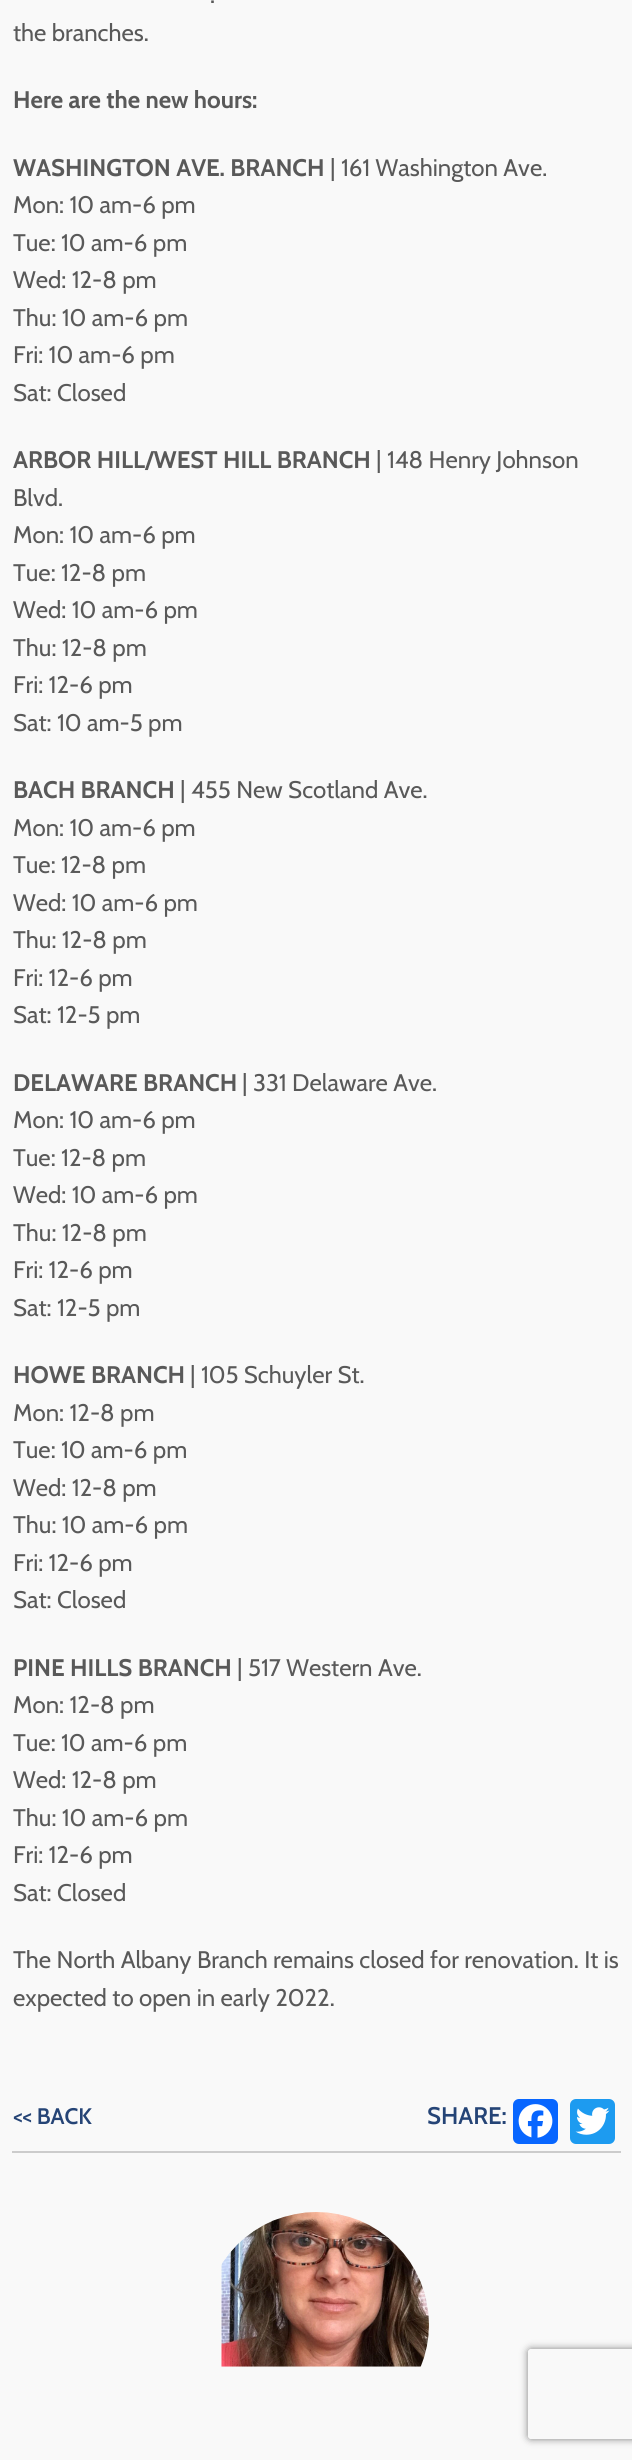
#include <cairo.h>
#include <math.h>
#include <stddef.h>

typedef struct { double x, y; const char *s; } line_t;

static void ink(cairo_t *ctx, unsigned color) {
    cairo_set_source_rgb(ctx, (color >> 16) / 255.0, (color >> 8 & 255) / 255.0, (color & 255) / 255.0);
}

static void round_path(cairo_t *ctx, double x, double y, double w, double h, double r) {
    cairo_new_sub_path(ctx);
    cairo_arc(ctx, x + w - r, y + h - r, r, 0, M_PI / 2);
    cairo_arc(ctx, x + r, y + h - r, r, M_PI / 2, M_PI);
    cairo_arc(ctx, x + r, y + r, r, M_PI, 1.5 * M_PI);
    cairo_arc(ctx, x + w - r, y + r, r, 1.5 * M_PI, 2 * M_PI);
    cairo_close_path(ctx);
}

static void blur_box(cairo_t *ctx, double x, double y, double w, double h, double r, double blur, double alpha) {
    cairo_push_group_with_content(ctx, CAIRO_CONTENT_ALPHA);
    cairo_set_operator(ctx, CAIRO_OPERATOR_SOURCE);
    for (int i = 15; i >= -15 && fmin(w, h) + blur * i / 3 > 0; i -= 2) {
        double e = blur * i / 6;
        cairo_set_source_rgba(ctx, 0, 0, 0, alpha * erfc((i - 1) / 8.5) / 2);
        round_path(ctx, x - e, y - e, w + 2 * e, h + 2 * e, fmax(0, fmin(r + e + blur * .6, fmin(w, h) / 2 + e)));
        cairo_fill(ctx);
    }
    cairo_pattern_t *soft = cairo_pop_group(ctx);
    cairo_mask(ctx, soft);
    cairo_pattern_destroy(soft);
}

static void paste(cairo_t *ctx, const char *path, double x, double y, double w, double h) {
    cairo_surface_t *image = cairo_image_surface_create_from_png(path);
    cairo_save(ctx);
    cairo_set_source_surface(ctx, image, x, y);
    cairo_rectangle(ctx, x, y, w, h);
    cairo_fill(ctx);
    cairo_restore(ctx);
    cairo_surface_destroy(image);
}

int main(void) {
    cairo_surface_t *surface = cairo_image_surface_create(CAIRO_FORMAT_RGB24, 632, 2460);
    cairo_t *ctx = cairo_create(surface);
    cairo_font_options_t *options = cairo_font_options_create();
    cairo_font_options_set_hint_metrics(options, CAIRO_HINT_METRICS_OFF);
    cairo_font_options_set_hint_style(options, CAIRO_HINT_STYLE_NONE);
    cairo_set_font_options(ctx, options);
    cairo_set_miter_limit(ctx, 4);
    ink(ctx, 0xF9F9F9);
    cairo_paint(ctx);
    cairo_select_font_face(ctx, "Cabin", CAIRO_FONT_SLANT_NORMAL, CAIRO_FONT_WEIGHT_NORMAL);
    cairo_set_font_size(ctx, 24);
    ink(ctx, 0x595959);
    cairo_move_to(ctx, 210, 3);
    cairo_show_text(ctx, ".");
    cairo_move_to(ctx, 13, 41);
    cairo_show_text(ctx, "the branches.");
    cairo_select_font_face(ctx, "Cabin", CAIRO_FONT_SLANT_NORMAL, CAIRO_FONT_WEIGHT_BOLD);
    cairo_move_to(ctx, 13, 108);
    cairo_show_text(ctx, "Here are the new hours:");
    cairo_move_to(ctx, 13, 176);
    cairo_show_text(ctx, "WASHINGTON AVE. BRANCH");
    cairo_select_font_face(ctx, "Cabin", CAIRO_FONT_SLANT_NORMAL, CAIRO_FONT_WEIGHT_NORMAL);
    {
        static const line_t items[] = {
            {330, 176, "| 161 Washington Ave."},
            {13, 213, "Mon: 10 am-6 pm"},
            {13, 251, "Tue: 10 am-6 pm"},
            {13, 288, "Wed: 12-8 pm"},
            {13, 326, "Thu: 10 am-6 pm"},
            {13, 363, "Fri: 10 am-6 pm"},
            {13, 401, "Sat: Closed"},
        };
        for (size_t i = 0; i < sizeof items / sizeof *items; i++) {
            cairo_move_to(ctx, items[i].x, items[i].y);
            cairo_show_text(ctx, items[i].s);
        }
    }
    cairo_select_font_face(ctx, "Cabin", CAIRO_FONT_SLANT_NORMAL, CAIRO_FONT_WEIGHT_BOLD);
    cairo_move_to(ctx, 13, 468);
    cairo_show_text(ctx, "ARBOR HILL/WEST HILL BRANCH");
    cairo_select_font_face(ctx, "Cabin", CAIRO_FONT_SLANT_NORMAL, CAIRO_FONT_WEIGHT_NORMAL);
    {
        static const line_t items[] = {
            {376, 468, "| 148 Henry Johnson"},
            {13, 506, "Blvd."},
            {13, 543, "Mon: 10 am-6 pm"},
            {13, 581, "Tue: 12-8 pm"},
            {13, 618, "Wed: 10 am-6 pm"},
            {13, 656, "Thu: 12-8 pm"},
            {13, 693, "Fri: 12-6 pm"},
            {13, 731, "Sat: 10 am-5 pm"},
        };
        for (size_t i = 0; i < sizeof items / sizeof *items; i++) {
            cairo_move_to(ctx, items[i].x, items[i].y);
            cairo_show_text(ctx, items[i].s);
        }
    }
    cairo_select_font_face(ctx, "Cabin", CAIRO_FONT_SLANT_NORMAL, CAIRO_FONT_WEIGHT_BOLD);
    cairo_move_to(ctx, 13, 798);
    cairo_show_text(ctx, "BACH BRANCH");
    cairo_select_font_face(ctx, "Cabin", CAIRO_FONT_SLANT_NORMAL, CAIRO_FONT_WEIGHT_NORMAL);
    {
        static const line_t items[] = {
            {180, 798, "| 455 New Scotland Ave."},
            {13, 836, "Mon: 10 am-6 pm"},
            {13, 873, "Tue: 12-8 pm"},
            {13, 911, "Wed: 10 am-6 pm"},
            {13, 948, "Thu: 12-8 pm"},
            {13, 986, "Fri: 12-6 pm"},
            {13, 1023, "Sat: 12-5 pm"},
        };
        for (size_t i = 0; i < sizeof items / sizeof *items; i++) {
            cairo_move_to(ctx, items[i].x, items[i].y);
            cairo_show_text(ctx, items[i].s);
        }
    }
    cairo_select_font_face(ctx, "Cabin", CAIRO_FONT_SLANT_NORMAL, CAIRO_FONT_WEIGHT_BOLD);
    cairo_move_to(ctx, 13, 1091);
    cairo_show_text(ctx, "DELAWARE BRANCH");
    cairo_select_font_face(ctx, "Cabin", CAIRO_FONT_SLANT_NORMAL, CAIRO_FONT_WEIGHT_NORMAL);
    {
        static const line_t items[] = {
            {242, 1091, "| 331 Delaware Ave."},
            {13, 1128, "Mon: 10 am-6 pm"},
            {13, 1166, "Tue: 12-8 pm"},
            {13, 1203, "Wed: 10 am-6 pm"},
            {13, 1241, "Thu: 12-8 pm"},
            {13, 1278, "Fri: 12-6 pm"},
            {13, 1316, "Sat: 12-5 pm"},
        };
        for (size_t i = 0; i < sizeof items / sizeof *items; i++) {
            cairo_move_to(ctx, items[i].x, items[i].y);
            cairo_show_text(ctx, items[i].s);
        }
    }
    cairo_select_font_face(ctx, "Cabin", CAIRO_FONT_SLANT_NORMAL, CAIRO_FONT_WEIGHT_BOLD);
    cairo_move_to(ctx, 13, 1383);
    cairo_show_text(ctx, "HOWE BRANCH");
    cairo_select_font_face(ctx, "Cabin", CAIRO_FONT_SLANT_NORMAL, CAIRO_FONT_WEIGHT_NORMAL);
    {
        static const line_t items[] = {
            {190, 1383, "| 105 Schuyler St."},
            {13, 1421, "Mon: 12-8 pm"},
            {13, 1458, "Tue: 10 am-6 pm"},
            {13, 1496, "Wed: 12-8 pm"},
            {13, 1533, "Thu: 10 am-6 pm"},
            {13, 1571, "Fri: 12-6 pm"},
            {13, 1608, "Sat: Closed"},
        };
        for (size_t i = 0; i < sizeof items / sizeof *items; i++) {
            cairo_move_to(ctx, items[i].x, items[i].y);
            cairo_show_text(ctx, items[i].s);
        }
    }
    cairo_select_font_face(ctx, "Cabin", CAIRO_FONT_SLANT_NORMAL, CAIRO_FONT_WEIGHT_BOLD);
    cairo_move_to(ctx, 13, 1676);
    cairo_show_text(ctx, "PINE HILLS BRANCH");
    cairo_select_font_face(ctx, "Cabin", CAIRO_FONT_SLANT_NORMAL, CAIRO_FONT_WEIGHT_NORMAL);
    {
        static const line_t items[] = {
            {237, 1676, "| 517 Western Ave."},
            {13, 1713, "Mon: 12-8 pm"},
            {13, 1751, "Tue: 10 am-6 pm"},
            {13, 1788, "Wed: 12-8 pm"},
            {13, 1826, "Thu: 10 am-6 pm"},
            {13, 1863, "Fri: 12-6 pm"},
            {13, 1901, "Sat: Closed"},
            {13, 1968, "The North Albany Branch remains closed for renovation. It is"},
            {13, 2006, "expected to open in early 2022."},
        };
        for (size_t i = 0; i < sizeof items / sizeof *items; i++) {
            cairo_move_to(ctx, items[i].x, items[i].y);
            cairo_show_text(ctx, items[i].s);
        }
    }
    ink(ctx, 0xCCCCCC);
    cairo_rectangle(ctx, 12, 2151, 609, 2);
    cairo_fill(ctx);
    cairo_select_font_face(ctx, "Cabin SemiBold", CAIRO_FONT_SLANT_NORMAL, CAIRO_FONT_WEIGHT_NORMAL);
    cairo_set_font_size(ctx, 22.5);
    ink(ctx, 0x254476);
    cairo_move_to(ctx, 13, 2124);
    cairo_show_text(ctx, "<< BACK");
    cairo_set_font_size(ctx, 24);
    cairo_move_to(ctx, 427, 2124);
    cairo_show_text(ctx, "SHARE:");
    ink(ctx, 0x0866FF);
    round_path(ctx, 513, 2099, 45, 45, 6);
    cairo_fill(ctx);
    paste(ctx, "media/1.png", 518, 2104, 35, 34);
    ink(ctx, 0x1D9BF0);
    round_path(ctx, 570, 2099, 45, 45, 6);
    cairo_fill(ctx);
    paste(ctx, "media/2.png", 575, 2107, 35, 28);
    paste(ctx, "media/3.png", 221, 2212, 208, 155);
    cairo_save(ctx);
    cairo_set_fill_rule(ctx, CAIRO_FILL_RULE_EVEN_ODD);
    cairo_new_path(ctx);
    cairo_move_to(ctx, 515, 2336);
    cairo_line_to(ctx, 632, 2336);
    cairo_line_to(ctx, 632, 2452);
    cairo_line_to(ctx, 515, 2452);
    cairo_close_path(ctx);
    cairo_move_to(ctx, 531, 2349);
    cairo_line_to(ctx, 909, 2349);
    cairo_curve_to(ctx, 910.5, 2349, 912, 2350.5, 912, 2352);
    cairo_line_to(ctx, 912, 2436);
    cairo_curve_to(ctx, 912, 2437.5, 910.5, 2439, 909, 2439);
    cairo_line_to(ctx, 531, 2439);
    cairo_curve_to(ctx, 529.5, 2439, 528, 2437.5, 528, 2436);
    cairo_line_to(ctx, 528, 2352);
    cairo_curve_to(ctx, 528, 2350.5, 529.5, 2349, 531, 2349);
    cairo_close_path(ctx);
    cairo_clip(ctx);
    ink(ctx, 0x808080);
    blur_box(ctx, 528, 2349, 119, 90, 3, 4, 1);
    cairo_restore(ctx);
    cairo_surface_write_to_png(surface, "image.png");
    cairo_font_options_destroy(options);
    cairo_destroy(ctx);
    cairo_surface_destroy(surface);
    return 0;
}
